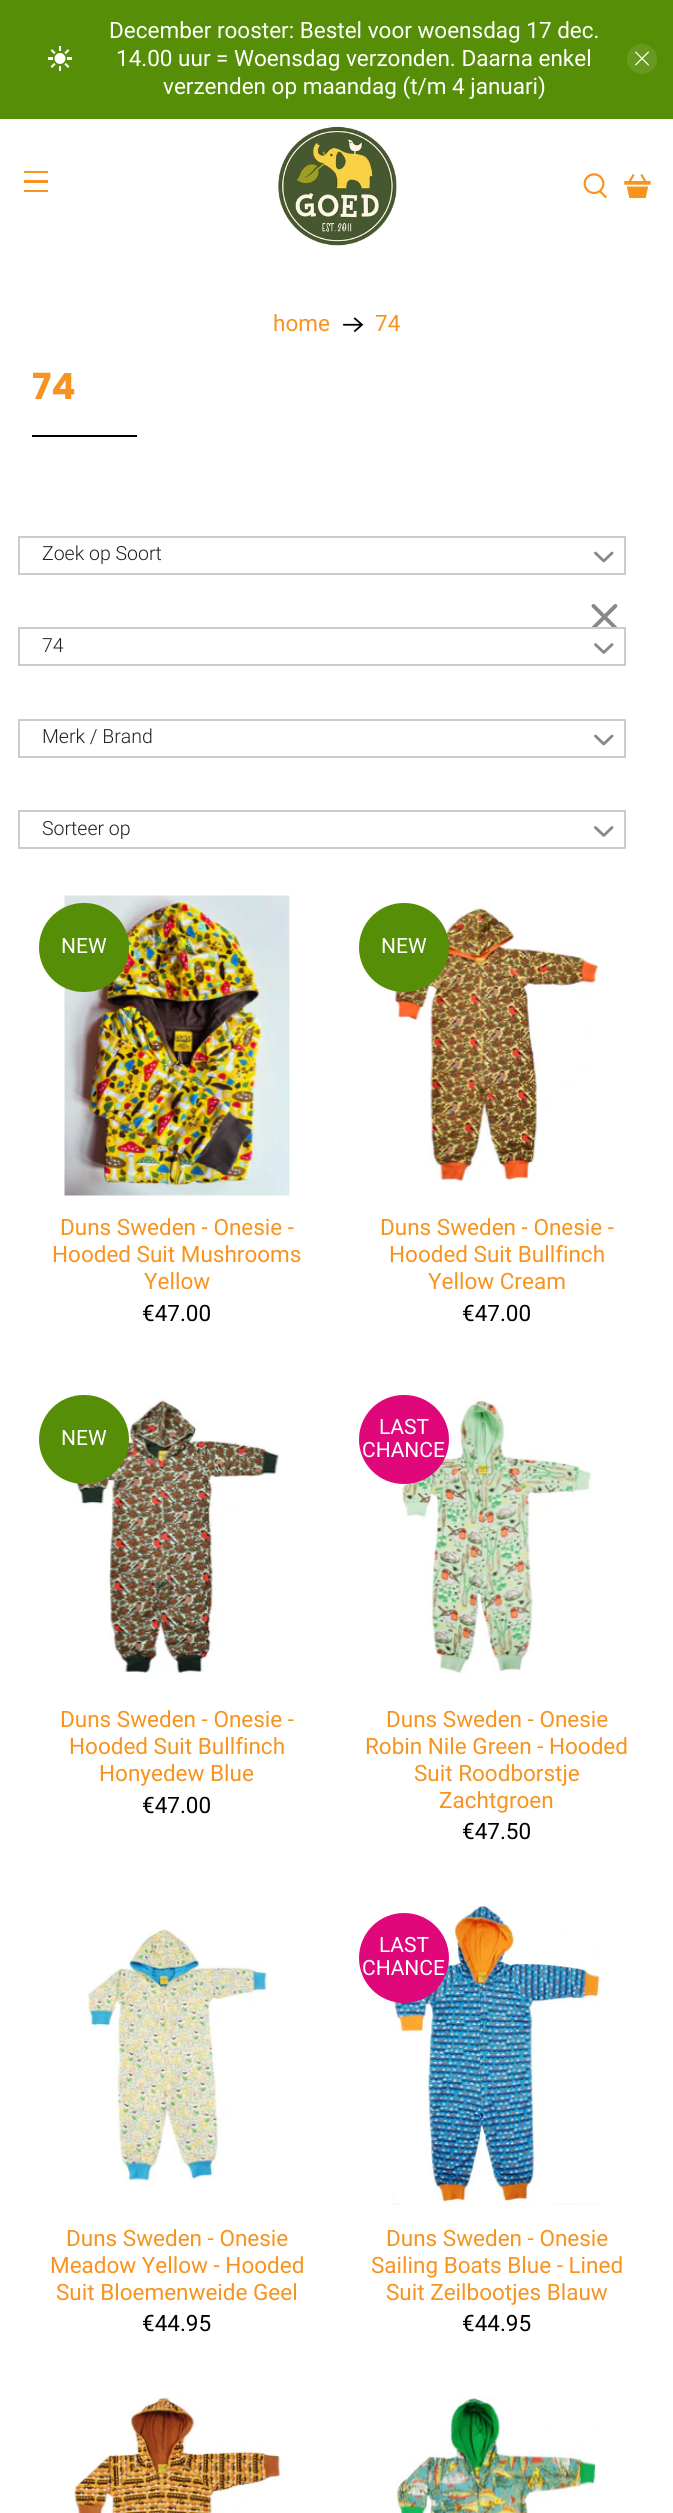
#include <cairo.h>
#include <math.h>
#include <stddef.h>

typedef struct { double x, y; const char *s; } line_t;
typedef struct { double x, y, w, h; unsigned color; } box_t;

static void ink(cairo_t *ctx, unsigned color) {
    cairo_set_source_rgb(ctx, (color >> 16) / 255.0, (color >> 8 & 255) / 255.0, (color & 255) / 255.0);
}

static void round_path(cairo_t *ctx, double x, double y, double w, double h, double r) {
    cairo_new_sub_path(ctx);
    cairo_arc(ctx, x + w - r, y + h - r, r, 0, M_PI / 2);
    cairo_arc(ctx, x + r, y + h - r, r, M_PI / 2, M_PI);
    cairo_arc(ctx, x + r, y + r, r, M_PI, 1.5 * M_PI);
    cairo_arc(ctx, x + w - r, y + r, r, 1.5 * M_PI, 2 * M_PI);
    cairo_close_path(ctx);
}

static void paste(cairo_t *ctx, const char *path, double x, double y, double w, double h) {
    cairo_surface_t *image = cairo_image_surface_create_from_png(path);
    cairo_save(ctx);
    cairo_set_source_surface(ctx, image, x, y);
    cairo_rectangle(ctx, x, y, w, h);
    cairo_fill(ctx);
    cairo_restore(ctx);
    cairo_surface_destroy(image);
}

int main(void) {
    cairo_surface_t *surface = cairo_image_surface_create(CAIRO_FORMAT_RGB24, 673, 2513);
    cairo_t *ctx = cairo_create(surface);
    cairo_font_options_t *options = cairo_font_options_create();
    cairo_font_options_set_hint_metrics(options, CAIRO_HINT_METRICS_OFF);
    cairo_font_options_set_hint_style(options, CAIRO_HINT_STYLE_NONE);
    cairo_set_font_options(ctx, options);
    cairo_set_miter_limit(ctx, 4);
    ink(ctx, 0xFFFFFF);
    cairo_paint(ctx);
    ink(ctx, 0x568E07);
    cairo_rectangle(ctx, 0, 0, 673, 119);
    cairo_fill(ctx);
    paste(ctx, "media/1.png", 48, 46, 24, 25);
    cairo_select_font_face(ctx, "Roboto", CAIRO_FONT_SLANT_NORMAL, CAIRO_FONT_WEIGHT_NORMAL);
    cairo_set_font_size(ctx, 22.5);
    ink(ctx, 0xFFFFFF);
    {
        static const line_t items[] = {
            {109, 38, "December rooster: Bestel voor woensdag 17 dec."},
            {116, 66, "14.00 uur = Woensdag verzonden. Daarna enkel"},
            {163, 94, "verzenden op maandag (t/m 4 januari)"},
        };
        for (size_t i = 0; i < sizeof items / sizeof *items; i++) {
            cairo_move_to(ctx, items[i].x, items[i].y);
            cairo_show_text(ctx, items[i].s);
        }
    }
    ink(ctx, 0x679920);
    cairo_new_path(ctx);
    cairo_arc(ctx, 642, 59, 15, 0, 2 * M_PI);
    cairo_fill(ctx);
    paste(ctx, "media/2.png", 635, 51, 15, 15);
    {
        static const box_t items[] = {
            {24, 171, 24, 2, 0xF7931E},
            {24, 180, 24, 3, 0xF7931E},
            {24, 190, 24, 2, 0xF7931E},
        };
        for (size_t i = 0; i < sizeof items / sizeof *items; i++) {
            ink(ctx, items[i].color);
            cairo_rectangle(ctx, items[i].x, items[i].y, items[i].w, items[i].h);
            cairo_fill(ctx);
        }
    }
    paste(ctx, "media/3.png", 278, 126, 119, 120);
    paste(ctx, "media/4.png", 583, 173, 24, 26);
    paste(ctx, "media/5.png", 624, 174, 27, 25);
    cairo_move_to(ctx, 273, 331);
    cairo_show_text(ctx, "home");
    paste(ctx, "media/6.png", 343, 317, 21, 16);
    cairo_move_to(ctx, 375, 331);
    cairo_show_text(ctx, "74");
    cairo_select_font_face(ctx, "Poppins", CAIRO_FONT_SLANT_NORMAL, CAIRO_FONT_WEIGHT_BOLD);
    cairo_set_font_size(ctx, 36);
    cairo_move_to(ctx, 32, 399);
    cairo_show_text(ctx, "74");
    ink(ctx, 0x000000);
    cairo_rectangle(ctx, 32, 435, 105, 2);
    cairo_fill(ctx);
    cairo_rectangle(ctx, 19, 537, 606, 37);
    ink(ctx, 0xCCCCCC);
    cairo_stroke(ctx);
    cairo_select_font_face(ctx, "Roboto Light", CAIRO_FONT_SLANT_NORMAL, CAIRO_FONT_WEIGHT_NORMAL);
    cairo_set_font_size(ctx, 19.5);
    ink(ctx, 0x222222);
    cairo_move_to(ctx, 42, 560);
    cairo_show_text(ctx, "Zoek op Soort");
    paste(ctx, "media/7.png", 594, 551, 20, 12);
    paste(ctx, "media/8.png", 591, 604, 27, 23);
    cairo_rectangle(ctx, 19, 628, 606, 37);
    ink(ctx, 0xCCCCCC);
    cairo_stroke(ctx);
    ink(ctx, 0x222222);
    cairo_move_to(ctx, 42, 652);
    cairo_show_text(ctx, "74");
    paste(ctx, "media/9.png", 594, 643, 20, 11);
    cairo_rectangle(ctx, 19, 720, 606, 37);
    ink(ctx, 0xCCCCCC);
    cairo_stroke(ctx);
    ink(ctx, 0x222222);
    cairo_move_to(ctx, 42, 743);
    cairo_show_text(ctx, "Merk / Brand");
    paste(ctx, "media/7.png", 594, 734, 20, 12);
    cairo_rectangle(ctx, 19, 811, 606, 37);
    ink(ctx, 0xCCCCCC);
    cairo_stroke(ctx);
    ink(ctx, 0x222222);
    cairo_move_to(ctx, 42, 835);
    cairo_show_text(ctx, "Sorteer op");
    paste(ctx, "media/9.png", 594, 826, 20, 11);
    paste(ctx, "media/10.png", 64, 895, 226, 301);
    ink(ctx, 0x568E07);
    round_path(ctx, 39, 903, 90, 89, 44.5);
    cairo_fill(ctx);
    cairo_select_font_face(ctx, "Roboto", CAIRO_FONT_SLANT_NORMAL, CAIRO_FONT_WEIGHT_NORMAL);
    cairo_set_font_size(ctx, 21);
    ink(ctx, 0xFFFFFF);
    cairo_move_to(ctx, 61, 953);
    cairo_show_text(ctx, "NEW");
    cairo_set_font_size(ctx, 22.5);
    ink(ctx, 0xF7931E);
    {
        static const line_t items[] = {
            {60, 1235, "Duns Sweden - Onesie -"},
            {52, 1262, "Hooded Suit Mushrooms"},
            {144, 1289, "Yellow"},
        };
        for (size_t i = 0; i < sizeof items / sizeof *items; i++) {
            cairo_move_to(ctx, items[i].x, items[i].y);
            cairo_show_text(ctx, items[i].s);
        }
    }
    ink(ctx, 0x000000);
    cairo_move_to(ctx, 142, 1321);
    cairo_show_text(ctx, "€47.00");
    paste(ctx, "media/11.png", 394, 905, 205, 280);
    ink(ctx, 0x568E07);
    round_path(ctx, 359, 903, 90, 89, 44.5);
    cairo_fill(ctx);
    cairo_set_font_size(ctx, 21);
    ink(ctx, 0xFFFFFF);
    cairo_move_to(ctx, 381, 953);
    cairo_show_text(ctx, "NEW");
    cairo_set_font_size(ctx, 22.5);
    ink(ctx, 0xF7931E);
    {
        static const line_t items[] = {
            {380, 1235, "Duns Sweden - Onesie -"},
            {389, 1262, "Hooded Suit Bullfinch"},
            {428, 1289, "Yellow Cream"},
        };
        for (size_t i = 0; i < sizeof items / sizeof *items; i++) {
            cairo_move_to(ctx, items[i].x, items[i].y);
            cairo_show_text(ctx, items[i].s);
        }
    }
    ink(ctx, 0x000000);
    cairo_move_to(ctx, 462, 1321);
    cairo_show_text(ctx, "€47.00");
    paste(ctx, "media/12.png", 74, 1396, 205, 278);
    ink(ctx, 0x568E07);
    round_path(ctx, 39, 1395, 90, 89, 44.5);
    cairo_fill(ctx);
    cairo_set_font_size(ctx, 21);
    ink(ctx, 0xFFFFFF);
    cairo_move_to(ctx, 61, 1445);
    cairo_show_text(ctx, "NEW");
    cairo_set_font_size(ctx, 22.5);
    ink(ctx, 0xF7931E);
    {
        static const line_t items[] = {
            {60, 1727, "Duns Sweden - Onesie -"},
            {69, 1754, "Hooded Suit Bullfinch"},
            {99, 1781, "Honyedew Blue"},
        };
        for (size_t i = 0; i < sizeof items / sizeof *items; i++) {
            cairo_move_to(ctx, items[i].x, items[i].y);
            cairo_show_text(ctx, items[i].s);
        }
    }
    ink(ctx, 0x000000);
    cairo_move_to(ctx, 142, 1813);
    cairo_show_text(ctx, "€47.00");
    paste(ctx, "media/13.png", 401, 1398, 191, 278);
    ink(ctx, 0xE0077A);
    round_path(ctx, 359, 1395, 90, 89, 44.5);
    cairo_fill(ctx);
    cairo_set_font_size(ctx, 21);
    ink(ctx, 0xFFFFFF);
    cairo_move_to(ctx, 379, 1434);
    cairo_show_text(ctx, "LAST");
    cairo_move_to(ctx, 362, 1457);
    cairo_show_text(ctx, "CHANCE");
    cairo_set_font_size(ctx, 22.5);
    ink(ctx, 0xF7931E);
    {
        static const line_t items[] = {
            {386, 1727, "Duns Sweden - Onesie"},
            {365, 1754, "Robin Nile Green - Hooded"},
            {414, 1781, "Suit Roodborstje"},
            {439, 1808, "Zachtgroen"},
        };
        for (size_t i = 0; i < sizeof items / sizeof *items; i++) {
            cairo_move_to(ctx, items[i].x, items[i].y);
            cairo_show_text(ctx, items[i].s);
        }
    }
    ink(ctx, 0x000000);
    cairo_move_to(ctx, 462, 1839);
    cairo_show_text(ctx, "€47.50");
    paste(ctx, "media/14.png", 87, 1929, 181, 256);
    ink(ctx, 0xF7931E);
    {
        static const line_t items[] = {
            {66, 2246, "Duns Sweden - Onesie"},
            {50, 2273, "Meadow Yellow - Hooded"},
            {56, 2300, "Suit Bloemenweide Geel"},
        };
        for (size_t i = 0; i < sizeof items / sizeof *items; i++) {
            cairo_move_to(ctx, items[i].x, items[i].y);
            cairo_show_text(ctx, items[i].s);
        }
    }
    ink(ctx, 0x000000);
    cairo_move_to(ctx, 142, 2331);
    cairo_show_text(ctx, "€44.95");
    paste(ctx, "media/15.png", 393, 1905, 207, 300);
    ink(ctx, 0xE0077A);
    cairo_arc(ctx, 404, 1958, 45, 0, 2 * M_PI);
    cairo_fill(ctx);
    cairo_set_font_size(ctx, 21);
    ink(ctx, 0xFFFFFF);
    cairo_move_to(ctx, 379, 1952);
    cairo_show_text(ctx, "LAST");
    cairo_move_to(ctx, 362, 1975);
    cairo_show_text(ctx, "CHANCE");
    cairo_set_font_size(ctx, 22.5);
    ink(ctx, 0xF7931E);
    {
        static const line_t items[] = {
            {386, 2246, "Duns Sweden - Onesie"},
            {371, 2273, "Sailing Boats Blue - Lined"},
            {386, 2300, "Suit Zeilbootjes Blauw"},
        };
        for (size_t i = 0; i < sizeof items / sizeof *items; i++) {
            cairo_move_to(ctx, items[i].x, items[i].y);
            cairo_show_text(ctx, items[i].s);
        }
    }
    ink(ctx, 0x000000);
    cairo_move_to(ctx, 462, 2331);
    cairo_show_text(ctx, "€44.95");
    paste(ctx, "media/16.png", 74, 2397, 207, 116);
    paste(ctx, "media/17.png", 396, 2397, 201, 116);
    cairo_surface_write_to_png(surface, "image.png");
    cairo_font_options_destroy(options);
    cairo_destroy(ctx);
    cairo_surface_destroy(surface);
    return 0;
}
